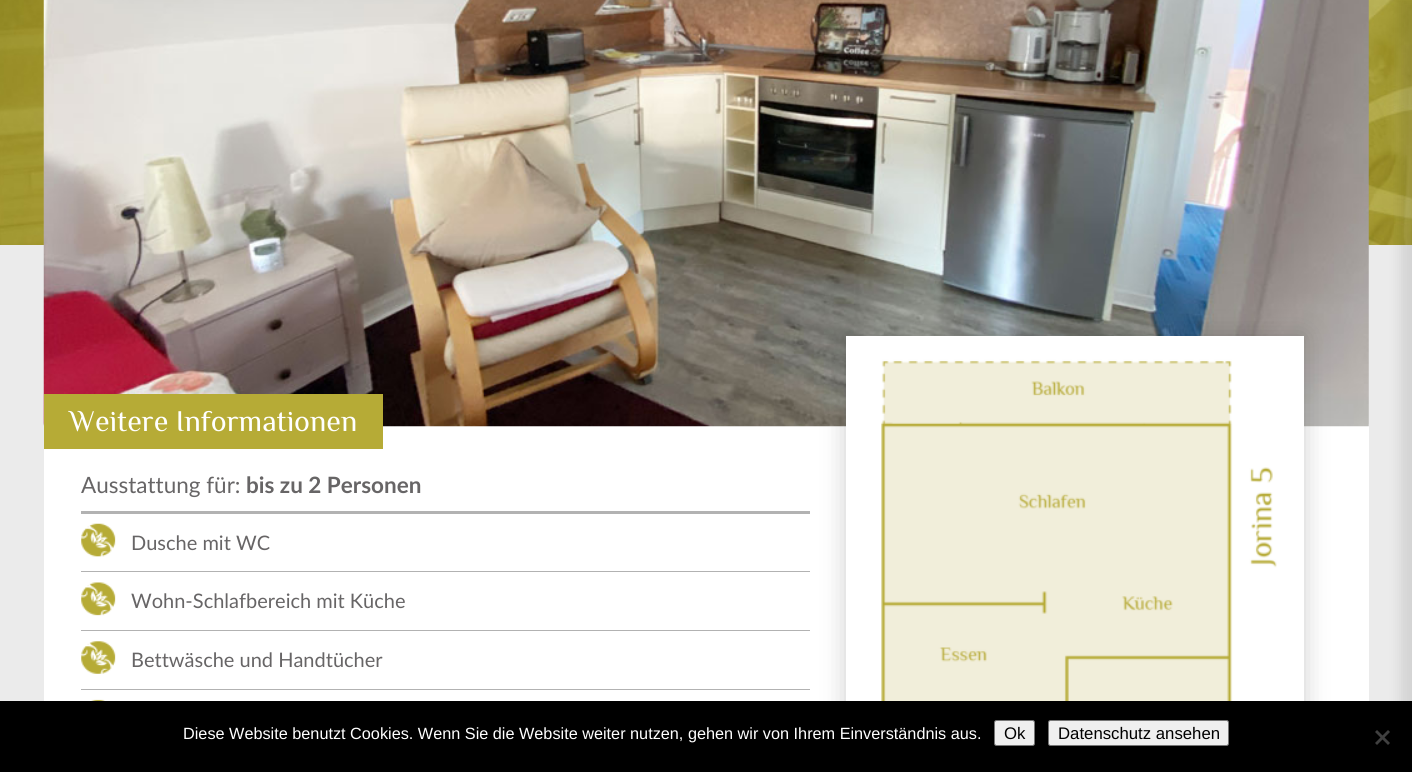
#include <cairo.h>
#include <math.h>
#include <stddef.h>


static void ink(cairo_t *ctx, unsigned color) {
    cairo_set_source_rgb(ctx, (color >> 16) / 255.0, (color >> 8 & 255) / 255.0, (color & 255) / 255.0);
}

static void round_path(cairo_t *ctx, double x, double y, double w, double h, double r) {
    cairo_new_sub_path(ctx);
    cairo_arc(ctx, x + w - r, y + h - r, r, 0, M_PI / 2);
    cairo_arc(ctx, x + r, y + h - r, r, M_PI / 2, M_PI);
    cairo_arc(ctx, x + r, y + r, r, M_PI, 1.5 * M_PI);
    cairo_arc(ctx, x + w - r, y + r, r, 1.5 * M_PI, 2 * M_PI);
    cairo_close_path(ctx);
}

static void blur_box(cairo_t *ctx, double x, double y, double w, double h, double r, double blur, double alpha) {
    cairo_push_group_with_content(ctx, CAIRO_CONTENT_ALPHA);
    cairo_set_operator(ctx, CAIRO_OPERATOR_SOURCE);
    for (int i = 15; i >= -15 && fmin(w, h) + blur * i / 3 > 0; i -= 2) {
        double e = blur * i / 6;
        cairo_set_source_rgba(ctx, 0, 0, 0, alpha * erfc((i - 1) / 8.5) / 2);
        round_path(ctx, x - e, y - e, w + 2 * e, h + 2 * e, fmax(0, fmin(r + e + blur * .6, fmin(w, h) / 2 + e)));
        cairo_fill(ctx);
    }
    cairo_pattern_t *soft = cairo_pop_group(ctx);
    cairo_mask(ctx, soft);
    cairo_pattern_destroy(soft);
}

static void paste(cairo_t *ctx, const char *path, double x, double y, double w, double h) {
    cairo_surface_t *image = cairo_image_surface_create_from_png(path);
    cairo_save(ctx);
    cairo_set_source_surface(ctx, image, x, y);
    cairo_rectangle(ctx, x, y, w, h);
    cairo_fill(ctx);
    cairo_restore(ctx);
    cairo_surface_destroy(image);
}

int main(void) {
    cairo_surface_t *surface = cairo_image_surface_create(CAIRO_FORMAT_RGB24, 1412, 772);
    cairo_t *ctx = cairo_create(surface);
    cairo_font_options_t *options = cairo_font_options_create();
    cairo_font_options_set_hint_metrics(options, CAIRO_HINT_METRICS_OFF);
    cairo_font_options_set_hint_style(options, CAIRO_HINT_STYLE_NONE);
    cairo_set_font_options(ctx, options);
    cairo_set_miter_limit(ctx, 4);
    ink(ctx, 0xEBEBEB);
    cairo_paint(ctx);
    paste(ctx, "media/1.png", 0, 0, 1412, 245);
    ink(ctx, 0xFFFFFF);
    cairo_rectangle(ctx, 44, 424, 1325, 277);
    cairo_fill(ctx);
    paste(ctx, "media/2.png", 43, 0, 1326, 427);
    ink(ctx, 0xB6AB36);
    cairo_rectangle(ctx, 44, 394, 339, 55);
    cairo_fill(ctx);
    cairo_select_font_face(ctx, "Philosopher", CAIRO_FONT_SLANT_NORMAL, CAIRO_FONT_WEIGHT_NORMAL);
    cairo_set_font_size(ctx, 30);
    ink(ctx, 0xFFFFFF);
    cairo_move_to(ctx, 69, 431);
    cairo_show_text(ctx, "Weitere Informationen");
    ink(ctx, 0xB2B2B2);
    cairo_rectangle(ctx, 81, 511, 729, 3);
    cairo_fill(ctx);
    cairo_select_font_face(ctx, "Lato", CAIRO_FONT_SLANT_NORMAL, CAIRO_FONT_WEIGHT_NORMAL);
    cairo_set_font_size(ctx, 22.5);
    ink(ctx, 0x676566);
    cairo_move_to(ctx, 81, 493);
    cairo_show_text(ctx, "Ausstattung für:");
    cairo_select_font_face(ctx, "Lato", CAIRO_FONT_SLANT_NORMAL, CAIRO_FONT_WEIGHT_BOLD);
    cairo_move_to(ctx, 246, 493);
    cairo_show_text(ctx, "bis zu 2 Personen");
    paste(ctx, "media/3.png", 81, 523, 35, 34);
    ink(ctx, 0xB2B2B2);
    cairo_rectangle(ctx, 81, 571, 729, 1);
    cairo_fill(ctx);
    cairo_select_font_face(ctx, "Lato", CAIRO_FONT_SLANT_NORMAL, CAIRO_FONT_WEIGHT_NORMAL);
    cairo_set_font_size(ctx, 20);
    ink(ctx, 0x676566);
    cairo_move_to(ctx, 131, 550);
    cairo_show_text(ctx, "Dusche mit WC");
    paste(ctx, "media/4.png", 81, 582, 35, 34);
    ink(ctx, 0xB2B2B2);
    cairo_rectangle(ctx, 81, 630, 729, 1);
    cairo_fill(ctx);
    ink(ctx, 0x676566);
    cairo_move_to(ctx, 131, 608);
    cairo_show_text(ctx, "Wohn-Schlafbereich mit Küche");
    paste(ctx, "media/5.png", 81, 641, 35, 33);
    ink(ctx, 0xB2B2B2);
    cairo_rectangle(ctx, 81, 689, 729, 1);
    cairo_fill(ctx);
    ink(ctx, 0x676566);
    cairo_move_to(ctx, 131, 667);
    cairo_show_text(ctx, "Bettwäsche und Handtücher");
    paste(ctx, "media/6.png", 91, 699, 14, 2);
    ink(ctx, 0x000000);
    blur_box(ctx, 846, 336, 458, 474, 0, 12.5, 0.2);
    cairo_rectangle(ctx, 850, 340, 450, 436);
    ink(ctx, 0xFFFFFF);
    cairo_set_line_width(ctx, 8);
    cairo_stroke(ctx);
    paste(ctx, "media/7.png", 854, 344, 442, 357);
    ink(ctx, 0x000000);
    blur_box(ctx, 1400, 0, 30, 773, 0, 6, 0.1);
    ink(ctx, 0x000000);
    cairo_rectangle(ctx, 0, 701, 1412, 71);
    cairo_fill(ctx);
    cairo_select_font_face(ctx, "Liberation Sans", CAIRO_FONT_SLANT_NORMAL, CAIRO_FONT_WEIGHT_NORMAL);
    cairo_set_font_size(ctx, 16.25);
    ink(ctx, 0xFFFFFF);
    cairo_move_to(ctx, 183, 739);
    cairo_show_text(ctx, "Diese Website benutzt Cookies. Wenn Sie die Website weiter nutzen, gehen wir von Ihrem Einverständnis aus.");
    ink(ctx, 0xEFEFEF);
    round_path(ctx, 994.5, 720.5, 40, 25, 2);
    cairo_fill_preserve(ctx);
    ink(ctx, 0x767676);
    cairo_set_line_width(ctx, 1);
    cairo_stroke(ctx);
    cairo_set_font_size(ctx, 16.75);
    ink(ctx, 0x000000);
    cairo_move_to(ctx, 1004, 739);
    cairo_show_text(ctx, "Ok");
    ink(ctx, 0xEFEFEF);
    round_path(ctx, 1048.5, 720.5, 180, 25, 2);
    cairo_fill_preserve(ctx);
    ink(ctx, 0x767676);
    cairo_stroke(ctx);
    ink(ctx, 0x000000);
    cairo_move_to(ctx, 1058, 739);
    cairo_show_text(ctx, "Datenschutz ansehen");
    ink(ctx, 0x404040);
    cairo_new_path(ctx);
    cairo_move_to(ctx, 1388, 730);
    cairo_line_to(ctx, 1390, 732);
    cairo_line_to(ctx, 1377, 745);
    cairo_line_to(ctx, 1375, 743);
    cairo_close_path(ctx);
    cairo_fill(ctx);
    cairo_new_path(ctx);
    cairo_move_to(ctx, 1375, 732);
    cairo_line_to(ctx, 1377, 730);
    cairo_line_to(ctx, 1390, 743);
    cairo_line_to(ctx, 1388, 745);
    cairo_close_path(ctx);
    cairo_fill(ctx);
    cairo_surface_write_to_png(surface, "image.png");
    cairo_font_options_destroy(options);
    cairo_destroy(ctx);
    cairo_surface_destroy(surface);
    return 0;
}
